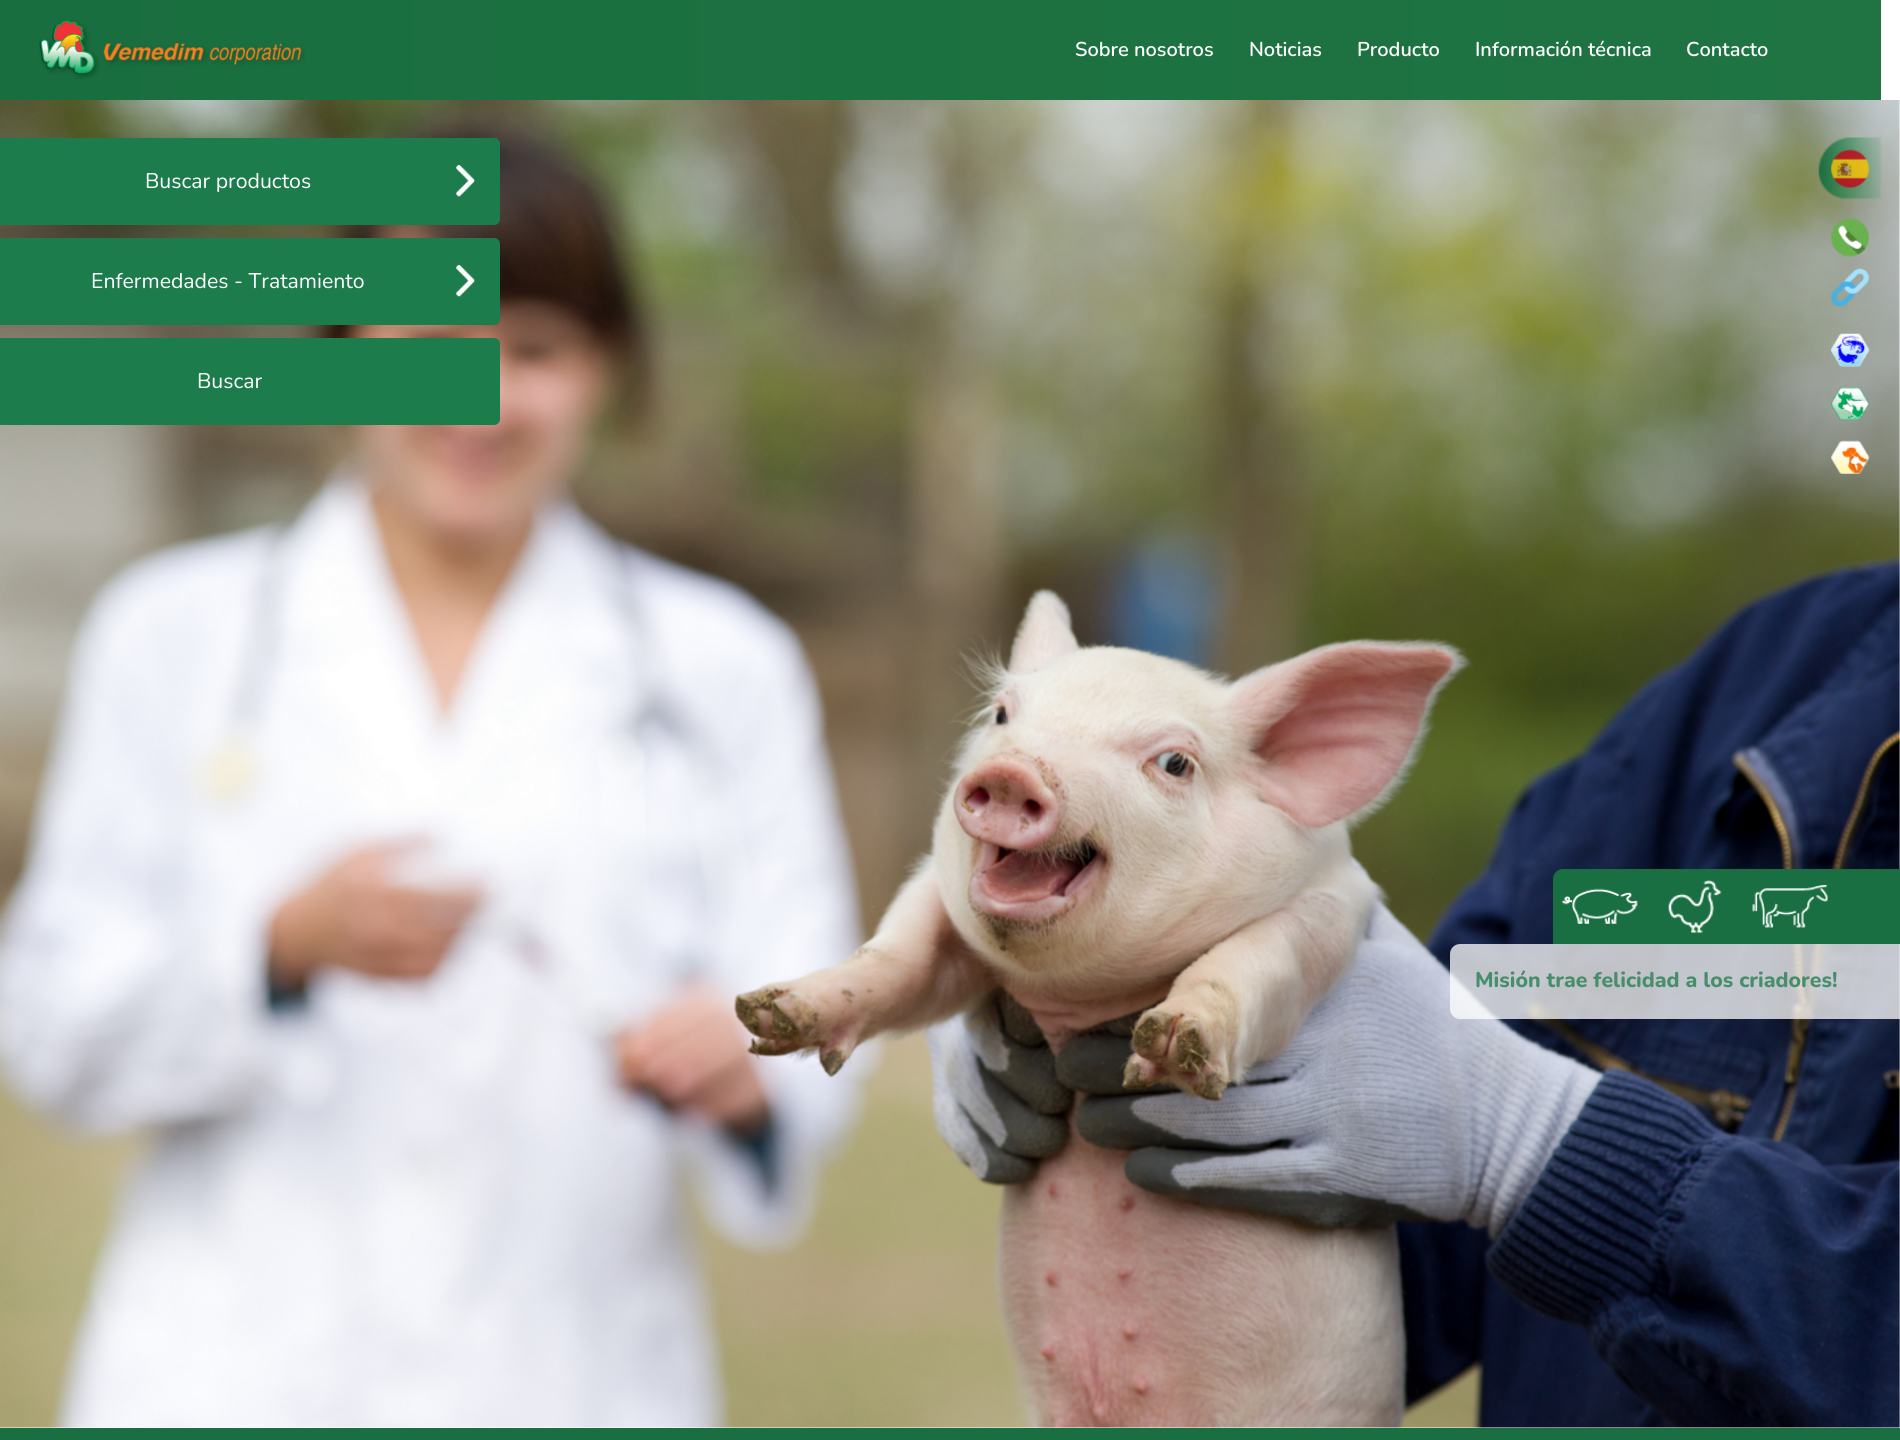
#include <cairo.h>
#include <math.h>
#include <stddef.h>

typedef struct { double x, y; const char *s; } line_t;

static void ink(cairo_t *ctx, unsigned color) {
    cairo_set_source_rgb(ctx, (color >> 16) / 255.0, (color >> 8 & 255) / 255.0, (color & 255) / 255.0);
}

static void paste(cairo_t *ctx, const char *path, double x, double y, double w, double h) {
    cairo_surface_t *image = cairo_image_surface_create_from_png(path);
    cairo_save(ctx);
    cairo_set_source_surface(ctx, image, x, y);
    cairo_rectangle(ctx, x, y, w, h);
    cairo_fill(ctx);
    cairo_restore(ctx);
    cairo_surface_destroy(image);
}

int main(void) {
    cairo_surface_t *surface = cairo_image_surface_create(CAIRO_FORMAT_RGB24, 1900, 1440);
    cairo_t *ctx = cairo_create(surface);
    cairo_font_options_t *options = cairo_font_options_create();
    cairo_font_options_set_hint_metrics(options, CAIRO_HINT_METRICS_OFF);
    cairo_font_options_set_hint_style(options, CAIRO_HINT_STYLE_NONE);
    cairo_set_font_options(ctx, options);
    cairo_set_miter_limit(ctx, 4);
    cairo_pattern_t *gradient;
    ink(ctx, 0xFFFFFF);
    cairo_paint(ctx);
    gradient = cairo_pattern_create_linear(0, 50, 1881, 50);
    cairo_pattern_add_color_stop_rgba(gradient, 0, 0.098, 0.431, 0.247, 1);
    cairo_pattern_add_color_stop_rgba(gradient, 1, 0.125, 0.455, 0.263, 1);
    cairo_set_source(ctx, gradient);
    cairo_pattern_destroy(gradient);
    cairo_rectangle(ctx, 0, 0, 1881, 100);
    cairo_fill(ctx);
    paste(ctx, "media/1.png", 39, 20, 266, 59);
    cairo_select_font_face(ctx, "Nunito SemiBold", CAIRO_FONT_SLANT_NORMAL, CAIRO_FONT_WEIGHT_NORMAL);
    cairo_set_font_size(ctx, 20);
    ink(ctx, 0xFFFFFF);
    {
        static const line_t items[] = {
            {1075, 56, "Sobre nosotros"},
            {1249, 56, "Noticias"},
            {1357, 56, "Producto"},
            {1475, 56, "Información técnica"},
            {1686, 56, "Contacto"},
        };
        for (size_t i = 0; i < sizeof items / sizeof *items; i++) {
            cairo_move_to(ctx, items[i].x, items[i].y);
            cairo_show_text(ctx, items[i].s);
        }
    }
    paste(ctx, "media/2.png", 0, 100, 1900, 1328);
    ink(ctx, 0x1D7C4B);
    cairo_new_path(ctx);
    cairo_move_to(ctx, 0, 138);
    cairo_line_to(ctx, 494, 138);
    cairo_curve_to(ctx, 497.5, 138, 500, 140.5, 500, 144);
    cairo_line_to(ctx, 500, 219);
    cairo_curve_to(ctx, 500, 222.5, 497.5, 225, 494, 225);
    cairo_line_to(ctx, 0, 225);
    cairo_close_path(ctx);
    cairo_fill(ctx);
    cairo_select_font_face(ctx, "Nunito", CAIRO_FONT_SLANT_NORMAL, CAIRO_FONT_WEIGHT_NORMAL);
    cairo_set_font_size(ctx, 21.25);
    ink(ctx, 0xFFFFFF);
    cairo_move_to(ctx, 145, 188);
    cairo_show_text(ctx, "Buscar productos");
    paste(ctx, "media/3.png", 456, 165, 19, 32);
    ink(ctx, 0x1D7C4B);
    cairo_new_path(ctx);
    cairo_move_to(ctx, 0, 238);
    cairo_line_to(ctx, 494, 238);
    cairo_curve_to(ctx, 497.5, 238, 500, 240.5, 500, 244);
    cairo_line_to(ctx, 500, 319);
    cairo_curve_to(ctx, 500, 322.5, 497.5, 325, 494, 325);
    cairo_line_to(ctx, 0, 325);
    cairo_close_path(ctx);
    cairo_fill(ctx);
    ink(ctx, 0xFFFFFF);
    cairo_move_to(ctx, 91, 288);
    cairo_show_text(ctx, "Enfermedades - Tratamiento");
    paste(ctx, "media/3.png", 456, 265, 19, 32);
    ink(ctx, 0x1D7C4B);
    cairo_new_path(ctx);
    cairo_move_to(ctx, 0, 338);
    cairo_line_to(ctx, 494, 338);
    cairo_curve_to(ctx, 497.5, 338, 500, 340.5, 500, 344);
    cairo_line_to(ctx, 500, 419);
    cairo_curve_to(ctx, 500, 422.5, 497.5, 425, 494, 425);
    cairo_line_to(ctx, 0, 425);
    cairo_close_path(ctx);
    cairo_fill(ctx);
    ink(ctx, 0xFFFFFF);
    cairo_move_to(ctx, 197, 388);
    cairo_show_text(ctx, "Buscar");
    ink(ctx, 0x196F42);
    cairo_new_path(ctx);
    cairo_move_to(ctx, 1563, 869);
    cairo_line_to(ctx, 1900, 869);
    cairo_line_to(ctx, 1900, 944);
    cairo_line_to(ctx, 1553, 944);
    cairo_line_to(ctx, 1553, 879);
    cairo_curve_to(ctx, 1553, 873.5, 1557.5, 869, 1563, 869);
    cairo_close_path(ctx);
    cairo_fill(ctx);
    paste(ctx, "media/4.png", 1562, 888, 76, 36);
    paste(ctx, "media/5.png", 1668, 880, 54, 53);
    paste(ctx, "media/6.png", 1752, 885, 76, 43);
    cairo_set_source_rgba(ctx, 1, 1, 1, 0.75);
    cairo_new_path(ctx);
    cairo_move_to(ctx, 1460, 944);
    cairo_line_to(ctx, 1900, 944);
    cairo_line_to(ctx, 1900, 1019);
    cairo_line_to(ctx, 1460, 1019);
    cairo_curve_to(ctx, 1454.5, 1019, 1450, 1014.5, 1450, 1009);
    cairo_line_to(ctx, 1450, 954);
    cairo_curve_to(ctx, 1450, 948.5, 1454.5, 944, 1460, 944);
    cairo_close_path(ctx);
    cairo_fill(ctx);
    cairo_select_font_face(ctx, "Nunito ExtraBold", CAIRO_FONT_SLANT_NORMAL, CAIRO_FONT_WEIGHT_NORMAL);
    ink(ctx, 0x478E6B);
    cairo_move_to(ctx, 1475, 987);
    cairo_show_text(ctx, "Misión trae felicidad a los criadores!");
    paste(ctx, "media/7.png", 1818, 137, 64, 63);
    paste(ctx, "media/8.png", 1831, 149, 39, 39);
    paste(ctx, "media/9.png", 1831, 218, 39, 39);
    paste(ctx, "media/10.png", 1831, 268, 39, 39);
    paste(ctx, "media/11.png", 1831, 333, 39, 34);
    paste(ctx, "media/12.png", 1831, 386, 39, 35);
    paste(ctx, "media/13.png", 1831, 440, 39, 34);
    ink(ctx, 0x196F42);
    cairo_rectangle(ctx, 0, 1428, 1900, 12);
    cairo_fill(ctx);
    cairo_surface_write_to_png(surface, "image.png");
    cairo_font_options_destroy(options);
    cairo_destroy(ctx);
    cairo_surface_destroy(surface);
    return 0;
}
